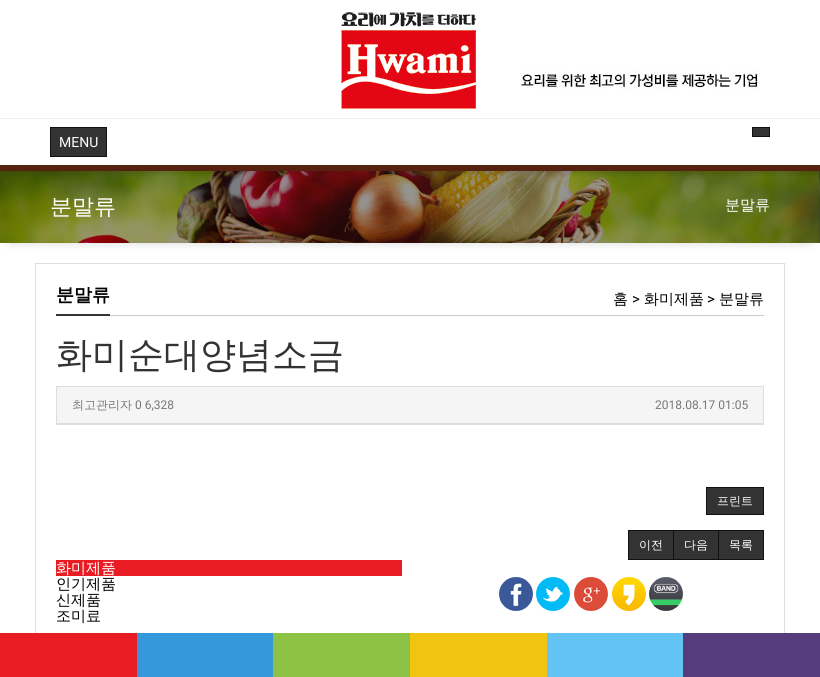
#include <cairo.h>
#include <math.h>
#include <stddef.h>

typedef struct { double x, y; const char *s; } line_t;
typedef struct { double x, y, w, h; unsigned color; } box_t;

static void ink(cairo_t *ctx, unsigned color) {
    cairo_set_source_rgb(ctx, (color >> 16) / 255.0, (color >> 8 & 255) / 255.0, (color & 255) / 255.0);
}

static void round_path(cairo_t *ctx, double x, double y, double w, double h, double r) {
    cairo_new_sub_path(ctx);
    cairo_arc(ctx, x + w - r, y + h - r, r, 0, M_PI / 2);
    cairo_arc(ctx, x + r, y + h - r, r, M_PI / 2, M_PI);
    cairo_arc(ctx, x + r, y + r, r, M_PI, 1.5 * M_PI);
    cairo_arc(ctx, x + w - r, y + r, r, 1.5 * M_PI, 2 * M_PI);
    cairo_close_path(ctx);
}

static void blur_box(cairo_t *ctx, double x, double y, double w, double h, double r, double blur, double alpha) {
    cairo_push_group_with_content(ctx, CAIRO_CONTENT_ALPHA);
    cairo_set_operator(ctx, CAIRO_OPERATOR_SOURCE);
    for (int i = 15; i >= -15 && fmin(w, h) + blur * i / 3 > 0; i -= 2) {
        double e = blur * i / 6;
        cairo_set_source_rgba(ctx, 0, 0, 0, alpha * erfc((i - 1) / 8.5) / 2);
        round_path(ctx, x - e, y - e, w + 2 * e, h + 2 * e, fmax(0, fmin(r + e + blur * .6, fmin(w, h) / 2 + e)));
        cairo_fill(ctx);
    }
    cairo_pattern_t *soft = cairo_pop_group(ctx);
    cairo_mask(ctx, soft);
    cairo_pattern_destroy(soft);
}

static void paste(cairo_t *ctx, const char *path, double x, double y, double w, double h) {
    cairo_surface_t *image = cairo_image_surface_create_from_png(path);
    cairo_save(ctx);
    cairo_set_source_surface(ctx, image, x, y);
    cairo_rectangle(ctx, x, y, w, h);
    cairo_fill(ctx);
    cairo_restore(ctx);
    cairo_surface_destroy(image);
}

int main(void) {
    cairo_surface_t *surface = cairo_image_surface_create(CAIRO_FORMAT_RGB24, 820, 677);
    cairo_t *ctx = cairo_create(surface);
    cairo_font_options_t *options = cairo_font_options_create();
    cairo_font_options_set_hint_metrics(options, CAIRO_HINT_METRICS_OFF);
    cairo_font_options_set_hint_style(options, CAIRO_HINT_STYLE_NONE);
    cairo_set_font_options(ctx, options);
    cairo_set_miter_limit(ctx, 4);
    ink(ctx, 0xFFFFFF);
    cairo_paint(ctx);
    paste(ctx, "media/1.png", 521, 70, 239, 24);
    paste(ctx, "media/2.png", 341, 12, 136, 97);
    ink(ctx, 0xEEEEEE);
    cairo_rectangle(ctx, 0, 118, 820, 1);
    cairo_fill(ctx);
    ink(ctx, 0x808080);
    blur_box(ctx, 10, 191, 800, 52, 0, 5, 0.3);
    paste(ctx, "media/3.png", 0, 171, 820, 72);
    cairo_save(ctx);
    cairo_rectangle(ctx, 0, 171, 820, 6);
    cairo_clip(ctx);
    ink(ctx, 0x191919);
    blur_box(ctx, 2, 126, 816, 48, 0, 2.5, 0.15);
    cairo_restore(ctx);
    ink(ctx, 0x333333);
    cairo_rectangle(ctx, 752.5, 127.5, 17, 9);
    cairo_fill_preserve(ctx);
    ink(ctx, 0x111111);
    cairo_set_line_width(ctx, 1);
    cairo_stroke(ctx);
    ink(ctx, 0x333333);
    cairo_rectangle(ctx, 50.5, 127.5, 56, 29);
    cairo_fill_preserve(ctx);
    ink(ctx, 0x111111);
    cairo_stroke(ctx);
    cairo_select_font_face(ctx, "Roboto", CAIRO_FONT_SLANT_NORMAL, CAIRO_FONT_WEIGHT_NORMAL);
    cairo_set_font_size(ctx, 14);
    ink(ctx, 0xFFFFFF);
    cairo_move_to(ctx, 59, 147);
    cairo_show_text(ctx, "MENU");
    ink(ctx, 0x572110);
    cairo_rectangle(ctx, 0, 165, 820, 6);
    cairo_fill(ctx);
    cairo_select_font_face(ctx, "WenQuanYi Zen Hei Medium", CAIRO_FONT_SLANT_NORMAL, CAIRO_FONT_WEIGHT_NORMAL);
    cairo_set_font_size(ctx, 22);
    ink(ctx, 0xFFFFFF);
    cairo_move_to(ctx, 50, 214);
    cairo_show_text(ctx, "분말류");
    cairo_set_font_size(ctx, 15);
    cairo_move_to(ctx, 725, 210);
    cairo_show_text(ctx, "분말류");
    cairo_rectangle(ctx, 35.5, 263.5, 749, 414);
    ink(ctx, 0xDDDDDD);
    cairo_stroke(ctx);
    ink(ctx, 0xCCCCCC);
    cairo_rectangle(ctx, 110, 315, 654, 1);
    cairo_fill(ctx);
    ink(ctx, 0x333333);
    cairo_rectangle(ctx, 56, 314, 54, 2);
    cairo_fill(ctx);
    cairo_select_font_face(ctx, "WenQuanYi Zen Hei", CAIRO_FONT_SLANT_NORMAL, CAIRO_FONT_WEIGHT_BOLD);
    cairo_set_font_size(ctx, 18);
    ink(ctx, 0x000000);
    cairo_move_to(ctx, 56, 301);
    cairo_show_text(ctx, "분말류");
    cairo_select_font_face(ctx, "WenQuanYi Zen Hei Medium", CAIRO_FONT_SLANT_NORMAL, CAIRO_FONT_WEIGHT_NORMAL);
    cairo_set_font_size(ctx, 15);
    cairo_move_to(ctx, 613, 304);
    cairo_show_text(ctx, "홈");
    cairo_select_font_face(ctx, "Roboto", CAIRO_FONT_SLANT_NORMAL, CAIRO_FONT_WEIGHT_NORMAL);
    cairo_move_to(ctx, 632, 304);
    cairo_show_text(ctx, ">");
    cairo_select_font_face(ctx, "WenQuanYi Zen Hei Medium", CAIRO_FONT_SLANT_NORMAL, CAIRO_FONT_WEIGHT_NORMAL);
    cairo_move_to(ctx, 644, 304);
    cairo_show_text(ctx, "화미제품");
    cairo_select_font_face(ctx, "Roboto", CAIRO_FONT_SLANT_NORMAL, CAIRO_FONT_WEIGHT_NORMAL);
    cairo_move_to(ctx, 707, 304);
    cairo_show_text(ctx, ">");
    cairo_select_font_face(ctx, "WenQuanYi Zen Hei Medium", CAIRO_FONT_SLANT_NORMAL, CAIRO_FONT_WEIGHT_NORMAL);
    cairo_move_to(ctx, 719, 304);
    cairo_show_text(ctx, "분말류");
    cairo_set_font_size(ctx, 36);
    ink(ctx, 0x333333);
    cairo_move_to(ctx, 56, 367);
    cairo_show_text(ctx, "화미순대양념소금");
    cairo_rectangle(ctx, 56.5, 386.5, 707, 38);
    ink(ctx, 0xDDDDDD);
    cairo_stroke(ctx);
    ink(ctx, 0xF5F5F5);
    cairo_rectangle(ctx, 57, 387, 706, 36);
    cairo_fill(ctx);
    ink(ctx, 0xDDDDDD);
    cairo_rectangle(ctx, 57, 423, 706, 1);
    cairo_fill(ctx);
    cairo_set_font_size(ctx, 12);
    ink(ctx, 0x777777);
    cairo_move_to(ctx, 72, 409);
    cairo_show_text(ctx, "최고관리자");
    cairo_select_font_face(ctx, "Roboto", CAIRO_FONT_SLANT_NORMAL, CAIRO_FONT_WEIGHT_NORMAL);
    cairo_move_to(ctx, 135, 409);
    cairo_show_text(ctx, "0 6,328");
    cairo_move_to(ctx, 655, 409);
    cairo_show_text(ctx, "2018.08.17 01:05");
    ink(ctx, 0x333333);
    cairo_rectangle(ctx, 706.5, 487.5, 57, 27);
    cairo_fill_preserve(ctx);
    ink(ctx, 0x111111);
    cairo_stroke(ctx);
    cairo_select_font_face(ctx, "WenQuanYi Zen Hei Medium", CAIRO_FONT_SLANT_NORMAL, CAIRO_FONT_WEIGHT_NORMAL);
    ink(ctx, 0xFFFFFF);
    cairo_move_to(ctx, 717, 505);
    cairo_show_text(ctx, "프린트");
    ink(ctx, 0x333333);
    cairo_rectangle(ctx, 628.5, 530.5, 45, 29);
    cairo_fill_preserve(ctx);
    ink(ctx, 0x111111);
    cairo_stroke(ctx);
    ink(ctx, 0xFFFFFF);
    cairo_move_to(ctx, 639, 549);
    cairo_show_text(ctx, "이전");
    ink(ctx, 0x333333);
    cairo_rectangle(ctx, 673.5, 530.5, 45, 29);
    cairo_fill_preserve(ctx);
    ink(ctx, 0x111111);
    cairo_stroke(ctx);
    ink(ctx, 0xFFFFFF);
    cairo_move_to(ctx, 684, 549);
    cairo_show_text(ctx, "다음");
    ink(ctx, 0x333333);
    cairo_rectangle(ctx, 718.5, 530.5, 45, 29);
    cairo_fill_preserve(ctx);
    ink(ctx, 0x111111);
    cairo_stroke(ctx);
    ink(ctx, 0xFFFFFF);
    cairo_move_to(ctx, 729, 549);
    cairo_show_text(ctx, "목록");
    ink(ctx, 0xE91B23);
    cairo_rectangle(ctx, 56, 560, 346, 16);
    cairo_fill(ctx);
    cairo_set_font_size(ctx, 15);
    ink(ctx, 0xFFFFFF);
    cairo_move_to(ctx, 56, 573);
    cairo_show_text(ctx, "화미제품");
    ink(ctx, 0x000000);
    {
        static const line_t items[] = {
            {56, 589, "인기제품"},
            {56, 605, "신제품"},
            {56, 621, "조미료"},
        };
        for (size_t i = 0; i < sizeof items / sizeof *items; i++) {
            cairo_move_to(ctx, items[i].x, items[i].y);
            cairo_show_text(ctx, items[i].s);
        }
    }
    paste(ctx, "media/4.png", 499, 577, 34, 34);
    paste(ctx, "media/5.png", 536, 577, 34, 34);
    paste(ctx, "media/6.png", 574, 577, 34, 34);
    paste(ctx, "media/7.png", 612, 577, 34, 34);
    paste(ctx, "media/8.png", 649, 577, 34, 34);
    {
        static const box_t items[] = {
            {0, 633, 137, 44, 0xE91B23},
            {137, 633, 136, 44, 0x3498DB},
            {273, 633, 137, 44, 0x8CC346},
            {410, 633, 137, 44, 0xF1C40F},
            {547, 633, 136, 44, 0x64C3F5},
            {683, 633, 137, 44, 0x553C7D},
        };
        for (size_t i = 0; i < sizeof items / sizeof *items; i++) {
            ink(ctx, items[i].color);
            cairo_rectangle(ctx, items[i].x, items[i].y, items[i].w, items[i].h);
            cairo_fill(ctx);
        }
    }
    cairo_surface_write_to_png(surface, "image.png");
    cairo_font_options_destroy(options);
    cairo_destroy(ctx);
    cairo_surface_destroy(surface);
    return 0;
}
